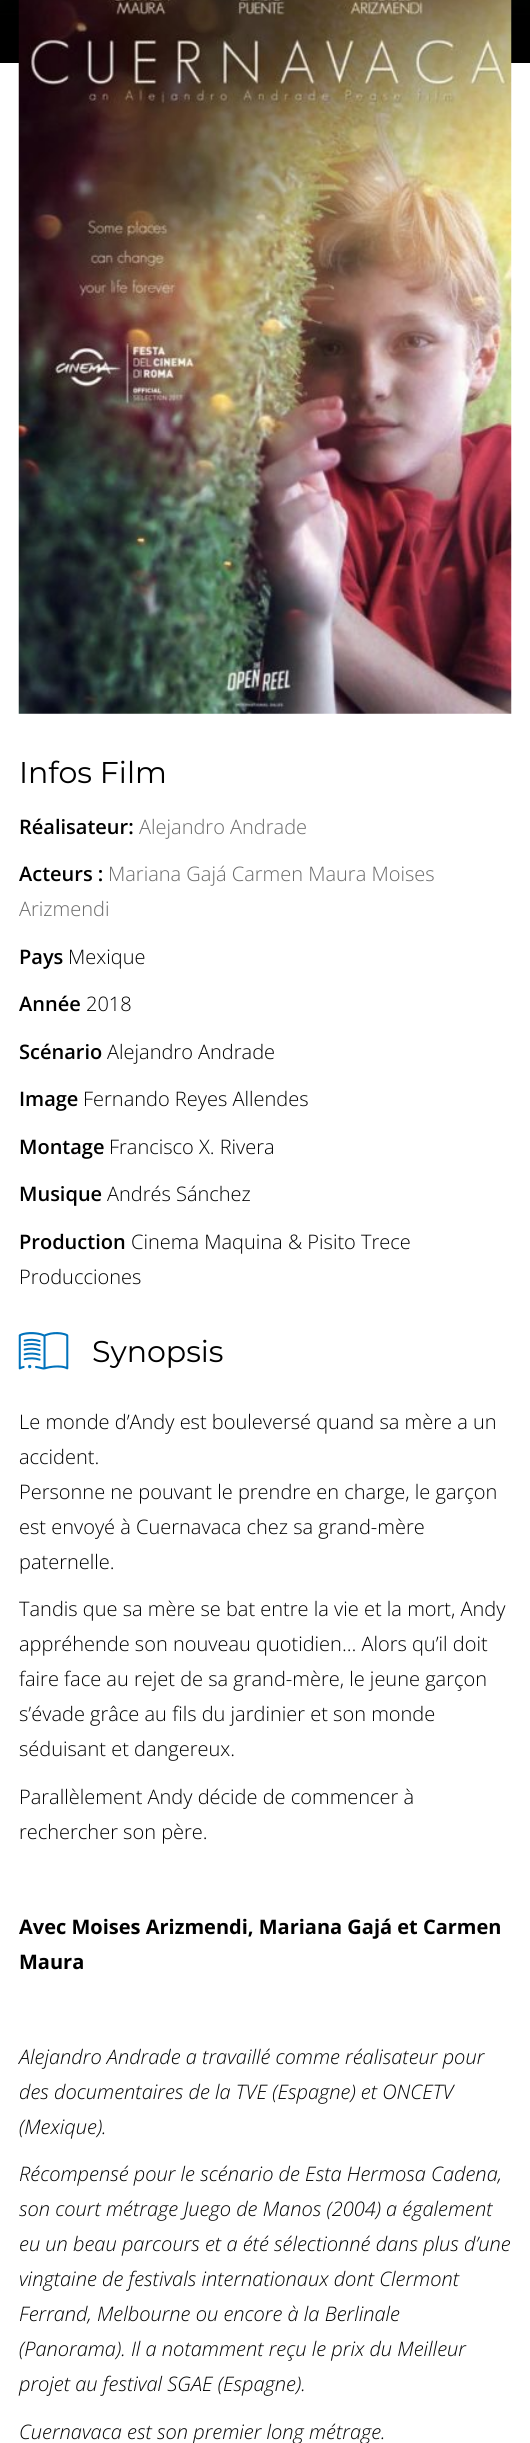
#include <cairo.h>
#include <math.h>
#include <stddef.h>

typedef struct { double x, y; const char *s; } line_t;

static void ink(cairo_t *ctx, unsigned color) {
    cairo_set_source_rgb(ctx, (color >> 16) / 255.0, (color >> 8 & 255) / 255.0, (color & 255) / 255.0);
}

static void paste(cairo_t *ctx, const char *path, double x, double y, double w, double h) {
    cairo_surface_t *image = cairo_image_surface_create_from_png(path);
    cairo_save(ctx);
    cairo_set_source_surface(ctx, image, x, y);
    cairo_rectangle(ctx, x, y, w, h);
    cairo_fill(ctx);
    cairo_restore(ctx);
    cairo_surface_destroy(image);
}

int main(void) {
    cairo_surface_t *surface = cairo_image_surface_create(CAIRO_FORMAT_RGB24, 530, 2443);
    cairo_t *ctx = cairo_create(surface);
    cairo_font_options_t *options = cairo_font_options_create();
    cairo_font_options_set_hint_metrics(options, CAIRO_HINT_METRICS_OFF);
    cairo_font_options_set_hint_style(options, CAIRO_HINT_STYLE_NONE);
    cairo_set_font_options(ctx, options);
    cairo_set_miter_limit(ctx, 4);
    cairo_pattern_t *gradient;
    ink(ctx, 0xFFFFFF);
    cairo_paint(ctx);
    paste(ctx, "media/1.png", 0, 0, 530, 13);
    gradient = cairo_pattern_create_linear(265, -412, 265, 63);
    cairo_pattern_add_color_stop_rgba(gradient, 0, 0, 0, 0, 0);
    cairo_pattern_add_color_stop_rgba(gradient, 0.9, 0, 0, 0, 1);
    cairo_set_source(ctx, gradient);
    cairo_pattern_destroy(gradient);
    cairo_rectangle(ctx, 0, 0, 530, 63);
    cairo_fill(ctx);
    paste(ctx, "media/2.png", 18, 0, 494, 714);
    cairo_select_font_face(ctx, "Montserrat", CAIRO_FONT_SLANT_NORMAL, CAIRO_FONT_WEIGHT_NORMAL);
    cairo_set_font_size(ctx, 30);
    ink(ctx, 0x000000);
    cairo_move_to(ctx, 19, 783);
    cairo_show_text(ctx, "Infos Film");
    cairo_select_font_face(ctx, "Open Sans SemiBold", CAIRO_FONT_SLANT_NORMAL, CAIRO_FONT_WEIGHT_NORMAL);
    cairo_set_font_size(ctx, 20);
    cairo_move_to(ctx, 19, 834);
    cairo_show_text(ctx, "Réalisateur:");
    cairo_select_font_face(ctx, "Open Sans Light", CAIRO_FONT_SLANT_NORMAL, CAIRO_FONT_WEIGHT_NORMAL);
    ink(ctx, 0x696969);
    cairo_move_to(ctx, 139, 834);
    cairo_show_text(ctx, "Alejandro Andrade");
    cairo_select_font_face(ctx, "Open Sans SemiBold", CAIRO_FONT_SLANT_NORMAL, CAIRO_FONT_WEIGHT_NORMAL);
    ink(ctx, 0x000000);
    cairo_move_to(ctx, 19, 881);
    cairo_show_text(ctx, "Acteurs :");
    cairo_select_font_face(ctx, "Open Sans Light", CAIRO_FONT_SLANT_NORMAL, CAIRO_FONT_WEIGHT_NORMAL);
    ink(ctx, 0x696969);
    cairo_move_to(ctx, 108, 881);
    cairo_show_text(ctx, "Mariana Gajá Carmen Maura Moises");
    cairo_move_to(ctx, 19, 916);
    cairo_show_text(ctx, "Arizmendi");
    cairo_select_font_face(ctx, "Open Sans SemiBold", CAIRO_FONT_SLANT_NORMAL, CAIRO_FONT_WEIGHT_NORMAL);
    ink(ctx, 0x000000);
    cairo_move_to(ctx, 19, 964);
    cairo_show_text(ctx, "Pays");
    cairo_select_font_face(ctx, "Open Sans Light", CAIRO_FONT_SLANT_NORMAL, CAIRO_FONT_WEIGHT_NORMAL);
    cairo_move_to(ctx, 68, 964);
    cairo_show_text(ctx, "Mexique");
    cairo_select_font_face(ctx, "Open Sans SemiBold", CAIRO_FONT_SLANT_NORMAL, CAIRO_FONT_WEIGHT_NORMAL);
    cairo_move_to(ctx, 19, 1011);
    cairo_show_text(ctx, "Année");
    cairo_select_font_face(ctx, "Open Sans Light", CAIRO_FONT_SLANT_NORMAL, CAIRO_FONT_WEIGHT_NORMAL);
    cairo_move_to(ctx, 86, 1011);
    cairo_show_text(ctx, "2018");
    cairo_select_font_face(ctx, "Open Sans SemiBold", CAIRO_FONT_SLANT_NORMAL, CAIRO_FONT_WEIGHT_NORMAL);
    cairo_move_to(ctx, 19, 1059);
    cairo_show_text(ctx, "Scénario");
    cairo_select_font_face(ctx, "Open Sans Light", CAIRO_FONT_SLANT_NORMAL, CAIRO_FONT_WEIGHT_NORMAL);
    cairo_move_to(ctx, 107, 1059);
    cairo_show_text(ctx, "Alejandro Andrade");
    cairo_select_font_face(ctx, "Open Sans SemiBold", CAIRO_FONT_SLANT_NORMAL, CAIRO_FONT_WEIGHT_NORMAL);
    cairo_move_to(ctx, 19, 1106);
    cairo_show_text(ctx, "Image");
    cairo_select_font_face(ctx, "Open Sans Light", CAIRO_FONT_SLANT_NORMAL, CAIRO_FONT_WEIGHT_NORMAL);
    cairo_move_to(ctx, 83, 1106);
    cairo_show_text(ctx, "Fernando Reyes Allendes");
    cairo_select_font_face(ctx, "Open Sans SemiBold", CAIRO_FONT_SLANT_NORMAL, CAIRO_FONT_WEIGHT_NORMAL);
    cairo_move_to(ctx, 19, 1154);
    cairo_show_text(ctx, "Montage");
    cairo_select_font_face(ctx, "Open Sans Light", CAIRO_FONT_SLANT_NORMAL, CAIRO_FONT_WEIGHT_NORMAL);
    cairo_move_to(ctx, 109, 1154);
    cairo_show_text(ctx, "Francisco X. Rivera");
    cairo_select_font_face(ctx, "Open Sans SemiBold", CAIRO_FONT_SLANT_NORMAL, CAIRO_FONT_WEIGHT_NORMAL);
    cairo_move_to(ctx, 19, 1201);
    cairo_show_text(ctx, "Musique");
    cairo_select_font_face(ctx, "Open Sans Light", CAIRO_FONT_SLANT_NORMAL, CAIRO_FONT_WEIGHT_NORMAL);
    cairo_move_to(ctx, 107, 1201);
    cairo_show_text(ctx, "Andrés Sánchez");
    cairo_select_font_face(ctx, "Open Sans SemiBold", CAIRO_FONT_SLANT_NORMAL, CAIRO_FONT_WEIGHT_NORMAL);
    cairo_move_to(ctx, 19, 1249);
    cairo_show_text(ctx, "Production");
    cairo_select_font_face(ctx, "Open Sans Light", CAIRO_FONT_SLANT_NORMAL, CAIRO_FONT_WEIGHT_NORMAL);
    cairo_move_to(ctx, 131, 1249);
    cairo_show_text(ctx, "Cinema Maquina & Pisito Trece");
    cairo_move_to(ctx, 19, 1284);
    cairo_show_text(ctx, "Producciones");
    paste(ctx, "media/3.png", 18, 1332, 51, 38);
    cairo_select_font_face(ctx, "Montserrat", CAIRO_FONT_SLANT_NORMAL, CAIRO_FONT_WEIGHT_NORMAL);
    cairo_set_font_size(ctx, 30);
    cairo_move_to(ctx, 92, 1362);
    cairo_show_text(ctx, "Synopsis");
    cairo_select_font_face(ctx, "Open Sans Light", CAIRO_FONT_SLANT_NORMAL, CAIRO_FONT_WEIGHT_NORMAL);
    cairo_set_font_size(ctx, 20);
    {
        static const line_t items[] = {
            {19, 1429, "Le monde d’Andy est bouleversé quand sa mère a un"},
            {19, 1464, "accident."},
            {19, 1499, "Personne ne pouvant le prendre en charge, le garçon"},
            {19, 1534, "est envoyé à Cuernavaca chez sa grand-mère"},
            {19, 1569, "paternelle."},
            {19, 1616, "Tandis que sa mère se bat entre la vie et la mort, Andy"},
            {19, 1651, "appréhende son nouveau quotidien… Alors qu’il doit"},
            {19, 1686, "faire face au rejet de sa grand-mère, le jeune garçon"},
            {19, 1721, "s’évade grâce au fils du jardinier et son monde"},
            {19, 1756, "séduisant et dangereux."},
            {19, 1804, "Parallèlement Andy décide de commencer à"},
            {19, 1839, "rechercher son père."},
        };
        for (size_t i = 0; i < sizeof items / sizeof *items; i++) {
            cairo_move_to(ctx, items[i].x, items[i].y);
            cairo_show_text(ctx, items[i].s);
        }
    }
    cairo_select_font_face(ctx, "Open Sans", CAIRO_FONT_SLANT_NORMAL, CAIRO_FONT_WEIGHT_BOLD);
    cairo_move_to(ctx, 19, 1934);
    cairo_show_text(ctx, "Avec Moises Arizmendi, Mariana Gajá et Carmen");
    cairo_move_to(ctx, 19, 1969);
    cairo_show_text(ctx, "Maura");
    cairo_select_font_face(ctx, "Open Sans Light", CAIRO_FONT_SLANT_ITALIC, CAIRO_FONT_WEIGHT_NORMAL);
    {
        static const line_t items[] = {
            {19, 2064, "Alejandro Andrade a travaillé comme réalisateur pour"},
            {19, 2099, "des documentaires de la TVE (Espagne) et ONCETV"},
            {19, 2134, "(Mexique)."},
            {19, 2181, "Récompensé pour le scénario de Esta Hermosa Cadena,"},
            {19, 2216, "son court métrage Juego de Manos (2004) a également"},
            {19, 2251, "eu un beau parcours et a été sélectionné dans plus d’une"},
            {19, 2286, "vingtaine de festivals internationaux dont Clermont"},
            {19, 2321, "Ferrand, Melbourne ou encore à la Berlinale"},
            {19, 2356, "(Panorama). Il a notamment reçu le prix du Meilleur"},
            {19, 2391, "projet au festival SGAE (Espagne)."},
            {19, 2439, "Cuernavaca est son premier long métrage."},
        };
        for (size_t i = 0; i < sizeof items / sizeof *items; i++) {
            cairo_move_to(ctx, items[i].x, items[i].y);
            cairo_show_text(ctx, items[i].s);
        }
    }
    cairo_surface_write_to_png(surface, "image.png");
    cairo_font_options_destroy(options);
    cairo_destroy(ctx);
    cairo_surface_destroy(surface);
    return 0;
}
